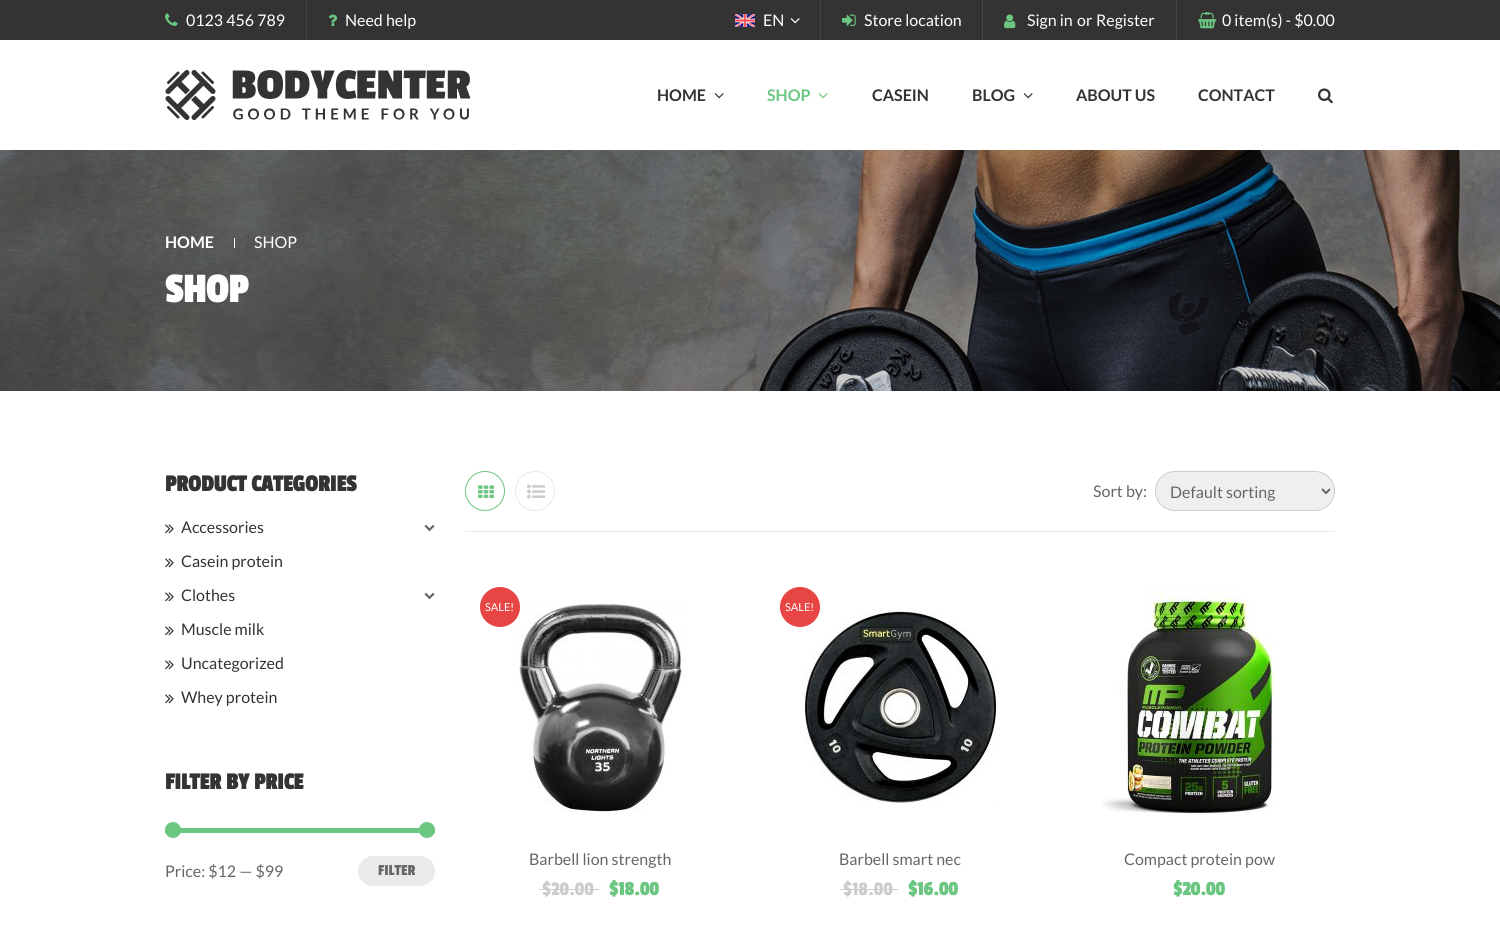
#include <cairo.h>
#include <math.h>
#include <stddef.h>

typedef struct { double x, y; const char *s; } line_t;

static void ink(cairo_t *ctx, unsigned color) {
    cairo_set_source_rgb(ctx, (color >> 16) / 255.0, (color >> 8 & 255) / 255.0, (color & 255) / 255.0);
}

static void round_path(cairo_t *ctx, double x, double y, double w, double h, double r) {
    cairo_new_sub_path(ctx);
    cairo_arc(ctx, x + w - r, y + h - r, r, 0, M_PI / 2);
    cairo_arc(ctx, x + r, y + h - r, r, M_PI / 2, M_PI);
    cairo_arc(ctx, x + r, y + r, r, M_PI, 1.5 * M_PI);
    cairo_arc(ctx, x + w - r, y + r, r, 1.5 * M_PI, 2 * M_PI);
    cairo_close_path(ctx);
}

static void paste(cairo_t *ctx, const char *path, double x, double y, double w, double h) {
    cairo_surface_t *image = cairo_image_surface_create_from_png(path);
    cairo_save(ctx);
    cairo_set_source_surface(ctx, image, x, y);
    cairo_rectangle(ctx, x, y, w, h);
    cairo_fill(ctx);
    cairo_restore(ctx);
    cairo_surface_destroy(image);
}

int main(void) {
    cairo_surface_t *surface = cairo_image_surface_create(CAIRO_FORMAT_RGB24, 1500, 928);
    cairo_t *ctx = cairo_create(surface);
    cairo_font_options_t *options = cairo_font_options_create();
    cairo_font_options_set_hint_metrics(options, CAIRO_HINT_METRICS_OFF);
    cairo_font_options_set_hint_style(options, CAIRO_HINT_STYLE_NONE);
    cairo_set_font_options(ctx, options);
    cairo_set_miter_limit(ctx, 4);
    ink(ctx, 0xFFFFFF);
    cairo_paint(ctx);
    ink(ctx, 0x333333);
    cairo_rectangle(ctx, 0, 0, 1500, 40);
    cairo_fill(ctx);
    paste(ctx, "media/1.png", 165, 13, 13, 13);
    cairo_select_font_face(ctx, "Lato", CAIRO_FONT_SLANT_NORMAL, CAIRO_FONT_WEIGHT_NORMAL);
    cairo_set_font_size(ctx, 16);
    ink(ctx, 0xFFFFFF);
    cairo_move_to(ctx, 186, 26);
    cairo_show_text(ctx, "0123 456 789");
    ink(ctx, 0x454545);
    cairo_rectangle(ctx, 306, 0, 1, 40);
    cairo_fill(ctx);
    paste(ctx, "media/2.png", 328, 14, 10, 12);
    ink(ctx, 0xFFFFFF);
    cairo_move_to(ctx, 345, 26);
    cairo_show_text(ctx, "Need help");
    paste(ctx, "media/3.png", 735, 14, 20, 13);
    cairo_move_to(ctx, 763, 26);
    cairo_show_text(ctx, "EN");
    paste(ctx, "media/4.png", 790, 18, 10, 6);
    ink(ctx, 0x454545);
    cairo_rectangle(ctx, 820, 0, 1, 40);
    cairo_fill(ctx);
    paste(ctx, "media/5.png", 842, 14, 14, 12);
    ink(ctx, 0xFFFFFF);
    cairo_move_to(ctx, 864, 26);
    cairo_show_text(ctx, "Store location");
    ink(ctx, 0x454545);
    cairo_rectangle(ctx, 982, 0, 1, 40);
    cairo_fill(ctx);
    paste(ctx, "media/6.png", 1004, 14, 12, 15);
    ink(ctx, 0xFFFFFF);
    {
        static const line_t items[] = {
            {1027, 26, "Sign in"},
            {1077, 26, "or"},
            {1096, 26, "Register"},
        };
        for (size_t i = 0; i < sizeof items / sizeof *items; i++) {
            cairo_move_to(ctx, items[i].x, items[i].y);
            cairo_show_text(ctx, items[i].s);
        }
    }
    ink(ctx, 0x454545);
    cairo_rectangle(ctx, 1176, 0, 1, 40);
    cairo_fill(ctx);
    paste(ctx, "media/7.png", 1198, 12, 19, 17);
    ink(ctx, 0xFFFFFF);
    cairo_move_to(ctx, 1222, 26);
    cairo_show_text(ctx, "0 item(s) - $0.00");
    paste(ctx, "media/8.png", 165, 70, 306, 50);
    cairo_select_font_face(ctx, "Lato", CAIRO_FONT_SLANT_NORMAL, CAIRO_FONT_WEIGHT_BOLD);
    ink(ctx, 0x333333);
    cairo_move_to(ctx, 657, 101);
    cairo_show_text(ctx, "HOME");
    paste(ctx, "media/9.png", 714, 93, 10, 6);
    ink(ctx, 0x6BC681);
    cairo_move_to(ctx, 767, 101);
    cairo_show_text(ctx, "SHOP");
    paste(ctx, "media/10.png", 818, 93, 10, 6);
    ink(ctx, 0x333333);
    cairo_move_to(ctx, 872, 101);
    cairo_show_text(ctx, "CASEIN");
    cairo_move_to(ctx, 972, 101);
    cairo_show_text(ctx, "BLOG");
    paste(ctx, "media/9.png", 1023, 93, 10, 6);
    cairo_move_to(ctx, 1076, 101);
    cairo_show_text(ctx, "ABOUT US");
    cairo_move_to(ctx, 1198, 101);
    cairo_show_text(ctx, "CONTACT");
    paste(ctx, "media/11.png", 1318, 88, 15, 16);
    paste(ctx, "media/12.png", 0, 150, 1500, 241);
    ink(ctx, 0xFFFFFF);
    cairo_move_to(ctx, 165, 248);
    cairo_show_text(ctx, "HOME");
    cairo_rectangle(ctx, 234, 238, 1, 10);
    cairo_fill(ctx);
    cairo_select_font_face(ctx, "Lato", CAIRO_FONT_SLANT_NORMAL, CAIRO_FONT_WEIGHT_NORMAL);
    cairo_move_to(ctx, 254, 248);
    cairo_show_text(ctx, "SHOP");
    cairo_select_font_face(ctx, "Passion One", CAIRO_FONT_SLANT_NORMAL, CAIRO_FONT_WEIGHT_BOLD);
    cairo_set_font_size(ctx, 42);
    cairo_move_to(ctx, 165, 302);
    cairo_show_text(ctx, "SHOP");
    cairo_set_font_size(ctx, 24);
    ink(ctx, 0x333333);
    cairo_move_to(ctx, 165, 491);
    cairo_show_text(ctx, "PRODUCT CATEGORIES");
    paste(ctx, "media/13.png", 165, 524, 9, 10);
    cairo_select_font_face(ctx, "Lato", CAIRO_FONT_SLANT_NORMAL, CAIRO_FONT_WEIGHT_NORMAL);
    cairo_set_font_size(ctx, 16);
    cairo_move_to(ctx, 181, 533);
    cairo_show_text(ctx, "Accessories");
    paste(ctx, "media/14.png", 424, 524, 11, 8);
    paste(ctx, "media/13.png", 165, 558, 9, 10);
    cairo_move_to(ctx, 181, 567);
    cairo_show_text(ctx, "Casein protein");
    paste(ctx, "media/13.png", 165, 592, 9, 10);
    cairo_move_to(ctx, 181, 601);
    cairo_show_text(ctx, "Clothes");
    paste(ctx, "media/14.png", 424, 592, 11, 8);
    paste(ctx, "media/13.png", 165, 626, 9, 10);
    cairo_move_to(ctx, 181, 635);
    cairo_show_text(ctx, "Muscle milk");
    paste(ctx, "media/13.png", 165, 660, 9, 10);
    cairo_move_to(ctx, 181, 669);
    cairo_show_text(ctx, "Uncategorized");
    paste(ctx, "media/13.png", 165, 694, 9, 10);
    cairo_move_to(ctx, 181, 703);
    cairo_show_text(ctx, "Whey protein");
    cairo_select_font_face(ctx, "Passion One", CAIRO_FONT_SLANT_NORMAL, CAIRO_FONT_WEIGHT_BOLD);
    cairo_set_font_size(ctx, 24);
    cairo_move_to(ctx, 165, 789);
    cairo_show_text(ctx, "FILTER BY PRICE");
    ink(ctx, 0x6BC681);
    cairo_rectangle(ctx, 165, 828, 270, 5);
    cairo_fill(ctx);
    cairo_arc(ctx, 173, 830, 8, 0, 2 * M_PI);
    cairo_fill(ctx);
    cairo_arc(ctx, 427, 830, 8, 0, 2 * M_PI);
    cairo_fill(ctx);
    cairo_select_font_face(ctx, "Lato", CAIRO_FONT_SLANT_NORMAL, CAIRO_FONT_WEIGHT_NORMAL);
    cairo_set_font_size(ctx, 16);
    ink(ctx, 0x666666);
    cairo_move_to(ctx, 165, 877);
    cairo_show_text(ctx, "Price: $12 — $99");
    ink(ctx, 0xEAEAEA);
    round_path(ctx, 358, 856, 77, 30, 15);
    cairo_fill(ctx);
    cairo_select_font_face(ctx, "Passion One", CAIRO_FONT_SLANT_NORMAL, CAIRO_FONT_WEIGHT_NORMAL);
    ink(ctx, 0x666666);
    cairo_move_to(ctx, 378, 875);
    cairo_show_text(ctx, "FILTER");
    ink(ctx, 0xEAEAEA);
    cairo_rectangle(ctx, 465, 531, 870, 1);
    cairo_fill(ctx);
    cairo_arc(ctx, 485, 491, 19.5, 0, 2 * M_PI);
    ink(ctx, 0x6BC681);
    cairo_set_line_width(ctx, 1);
    cairo_stroke(ctx);
    paste(ctx, "media/15.png", 478, 485, 16, 13);
    cairo_arc(ctx, 535, 491, 19.5, 0, 2 * M_PI);
    ink(ctx, 0xEAEAEA);
    cairo_stroke(ctx);
    paste(ctx, "media/16.png", 527, 484, 18, 15);
    cairo_select_font_face(ctx, "Lato", CAIRO_FONT_SLANT_NORMAL, CAIRO_FONT_WEIGHT_NORMAL);
    ink(ctx, 0x666666);
    cairo_move_to(ctx, 1093, 497);
    cairo_show_text(ctx, "Sort by:");
    ink(ctx, 0xEFEFEF);
    round_path(ctx, 1155.5, 471.5, 179, 39, 19.5);
    cairo_fill_preserve(ctx);
    ink(ctx, 0xCCCCCC);
    cairo_stroke(ctx);
    cairo_new_path(ctx);
    cairo_move_to(ctx, 1322, 489);
    cairo_line_to(ctx, 1326, 493);
    cairo_line_to(ctx, 1330, 489);
    ink(ctx, 0x666666);
    cairo_set_line_width(ctx, 2);
    cairo_stroke(ctx);
    cairo_move_to(ctx, 1170, 498);
    cairo_show_text(ctx, "Default sorting");
    paste(ctx, "media/17.png", 513, 604, 175, 208);
    ink(ctx, 0xE84545);
    cairo_arc(ctx, 500, 607, 20, 0, 2 * M_PI);
    cairo_fill(ctx);
    cairo_set_font_size(ctx, 11);
    ink(ctx, 0xFFFFFF);
    cairo_move_to(ctx, 485, 611);
    cairo_show_text(ctx, "SALE!");
    cairo_set_font_size(ctx, 16);
    ink(ctx, 0x666666);
    cairo_move_to(ctx, 529, 865);
    cairo_show_text(ctx, "Barbell lion strength");
    cairo_select_font_face(ctx, "Passion One", CAIRO_FONT_SLANT_NORMAL, CAIRO_FONT_WEIGHT_NORMAL);
    cairo_set_font_size(ctx, 20);
    ink(ctx, 0xCCCCCC);
    cairo_move_to(ctx, 542, 895);
    cairo_show_text(ctx, "$20.00");
    cairo_rectangle(ctx, 539, 889, 60, 1);
    cairo_fill(ctx);
    cairo_select_font_face(ctx, "Passion One", CAIRO_FONT_SLANT_NORMAL, CAIRO_FONT_WEIGHT_BOLD);
    ink(ctx, 0x6BC681);
    cairo_move_to(ctx, 609, 895);
    cairo_show_text(ctx, "$18.00");
    paste(ctx, "media/18.png", 803, 608, 194, 196);
    ink(ctx, 0xE84545);
    cairo_arc(ctx, 800, 607, 20, 0, 2 * M_PI);
    cairo_fill(ctx);
    cairo_select_font_face(ctx, "Lato", CAIRO_FONT_SLANT_NORMAL, CAIRO_FONT_WEIGHT_NORMAL);
    cairo_set_font_size(ctx, 11);
    ink(ctx, 0xFFFFFF);
    cairo_move_to(ctx, 785, 611);
    cairo_show_text(ctx, "SALE!");
    cairo_set_font_size(ctx, 16);
    ink(ctx, 0x666666);
    cairo_move_to(ctx, 839, 865);
    cairo_show_text(ctx, "Barbell smart nec");
    cairo_select_font_face(ctx, "Passion One", CAIRO_FONT_SLANT_NORMAL, CAIRO_FONT_WEIGHT_NORMAL);
    cairo_set_font_size(ctx, 20);
    ink(ctx, 0xCCCCCC);
    cairo_move_to(ctx, 843, 895);
    cairo_show_text(ctx, "$18.00");
    cairo_rectangle(ctx, 840, 889, 58, 1);
    cairo_fill(ctx);
    cairo_select_font_face(ctx, "Passion One", CAIRO_FONT_SLANT_NORMAL, CAIRO_FONT_WEIGHT_BOLD);
    ink(ctx, 0x6BC681);
    cairo_move_to(ctx, 908, 895);
    cairo_show_text(ctx, "$16.00");
    paste(ctx, "media/19.png", 1101, 588, 173, 227);
    cairo_select_font_face(ctx, "Lato", CAIRO_FONT_SLANT_NORMAL, CAIRO_FONT_WEIGHT_NORMAL);
    cairo_set_font_size(ctx, 16);
    ink(ctx, 0x666666);
    cairo_move_to(ctx, 1124, 865);
    cairo_show_text(ctx, "Compact protein pow");
    cairo_select_font_face(ctx, "Passion One", CAIRO_FONT_SLANT_NORMAL, CAIRO_FONT_WEIGHT_BOLD);
    cairo_set_font_size(ctx, 20);
    ink(ctx, 0x6BC681);
    cairo_move_to(ctx, 1173, 895);
    cairo_show_text(ctx, "$20.00");
    cairo_surface_write_to_png(surface, "image.png");
    cairo_font_options_destroy(options);
    cairo_destroy(ctx);
    cairo_surface_destroy(surface);
    return 0;
}
